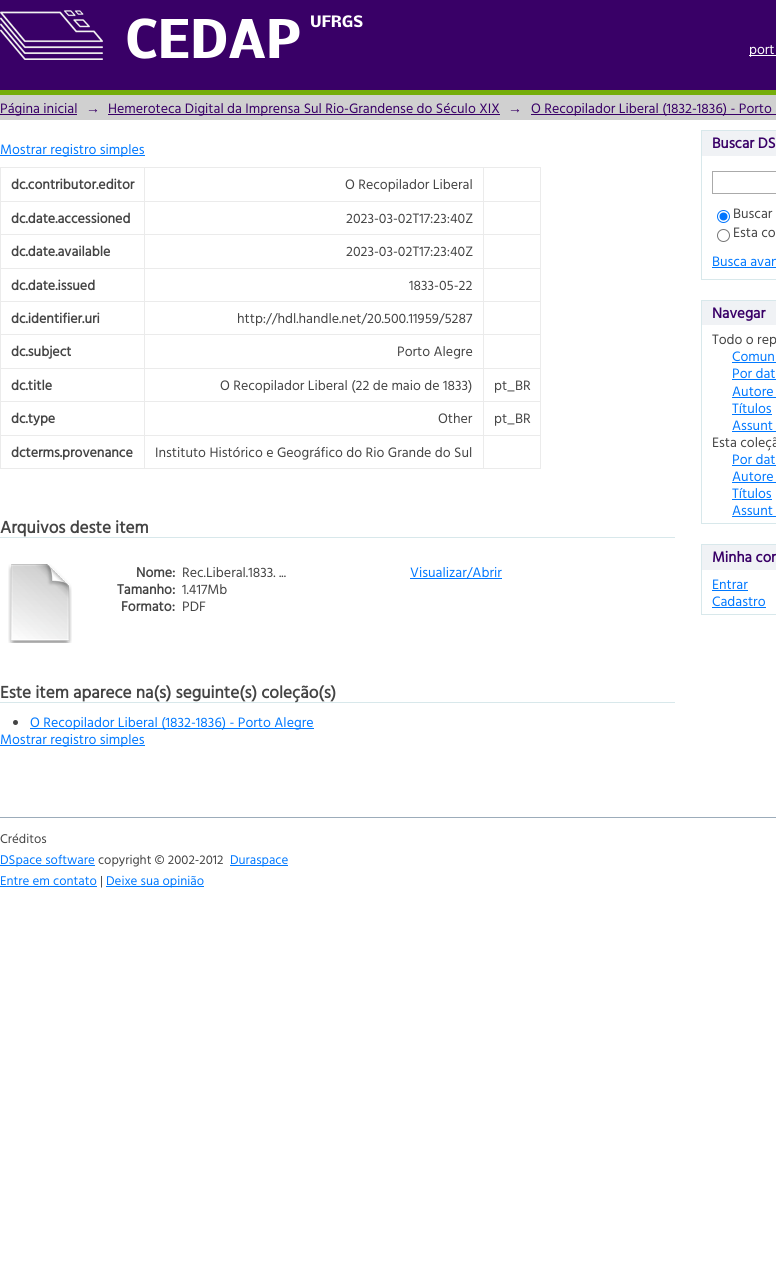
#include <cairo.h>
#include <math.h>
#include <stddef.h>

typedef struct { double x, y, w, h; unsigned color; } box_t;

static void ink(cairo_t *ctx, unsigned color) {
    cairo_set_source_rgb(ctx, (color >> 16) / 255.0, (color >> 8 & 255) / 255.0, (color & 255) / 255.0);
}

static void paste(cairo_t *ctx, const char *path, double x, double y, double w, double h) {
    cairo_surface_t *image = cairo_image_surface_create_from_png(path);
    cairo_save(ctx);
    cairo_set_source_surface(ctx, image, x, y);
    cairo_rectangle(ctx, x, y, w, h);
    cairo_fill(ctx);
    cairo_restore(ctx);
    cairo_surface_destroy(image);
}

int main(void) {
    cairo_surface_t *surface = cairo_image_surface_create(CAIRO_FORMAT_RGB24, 776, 1287);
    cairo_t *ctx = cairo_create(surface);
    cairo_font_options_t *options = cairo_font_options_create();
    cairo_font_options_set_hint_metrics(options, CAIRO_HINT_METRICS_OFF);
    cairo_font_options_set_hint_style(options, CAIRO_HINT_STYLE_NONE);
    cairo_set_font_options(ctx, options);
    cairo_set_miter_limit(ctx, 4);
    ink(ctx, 0xFFFFFF);
    cairo_paint(ctx);
    ink(ctx, 0x390067);
    cairo_rectangle(ctx, 0, 0, 776, 90);
    cairo_fill(ctx);
    paste(ctx, "media/1.png", 0, 10, 103, 50);
    cairo_select_font_face(ctx, "Nobile", CAIRO_FONT_SLANT_NORMAL, CAIRO_FONT_WEIGHT_BOLD);
    cairo_set_font_size(ctx, 49);
    ink(ctx, 0xFFFFFF);
    cairo_move_to(ctx, 125, 58);
    cairo_show_text(ctx, "CEDAP");
    cairo_set_font_size(ctx, 14.5);
    cairo_move_to(ctx, 310, 27);
    cairo_show_text(ctx, "UFRGS");
    cairo_rectangle(ctx, 749, 55, 27, 1);
    cairo_fill(ctx);
    cairo_select_font_face(ctx, "Hind Vadodara", CAIRO_FONT_SLANT_NORMAL, CAIRO_FONT_WEIGHT_NORMAL);
    cairo_set_font_size(ctx, 14);
    cairo_move_to(ctx, 749, 54);
    cairo_show_text(ctx, "port");
    {
        static const box_t items[] = {
            {0, 95, 776, 25, 0xD0D0D0},
            {0, 90, 776, 5, 0x75AD0A},
            {0, 114, 77, 1, 0x390067},
        };
        for (size_t i = 0; i < sizeof items / sizeof *items; i++) {
            ink(ctx, items[i].color);
            cairo_rectangle(ctx, items[i].x, items[i].y, items[i].w, items[i].h);
            cairo_fill(ctx);
        }
    }
    cairo_move_to(ctx, 0, 113);
    cairo_show_text(ctx, "Página inicial");
    cairo_select_font_face(ctx, "Liberation Sans", CAIRO_FONT_SLANT_NORMAL, CAIRO_FONT_WEIGHT_NORMAL);
    cairo_move_to(ctx, 86, 113);
    cairo_show_text(ctx, "→");
    cairo_rectangle(ctx, 108, 114, 392, 1);
    cairo_fill(ctx);
    cairo_select_font_face(ctx, "Hind Vadodara", CAIRO_FONT_SLANT_NORMAL, CAIRO_FONT_WEIGHT_NORMAL);
    cairo_move_to(ctx, 108, 113);
    cairo_show_text(ctx, "Hemeroteca Digital da Imprensa Sul Rio-Grandense do Século XIX");
    cairo_select_font_face(ctx, "Liberation Sans", CAIRO_FONT_SLANT_NORMAL, CAIRO_FONT_WEIGHT_NORMAL);
    cairo_move_to(ctx, 508, 113);
    cairo_show_text(ctx, "→");
    cairo_rectangle(ctx, 531, 114, 245, 1);
    cairo_fill(ctx);
    cairo_select_font_face(ctx, "Hind Vadodara", CAIRO_FONT_SLANT_NORMAL, CAIRO_FONT_WEIGHT_NORMAL);
    cairo_move_to(ctx, 531, 113);
    cairo_show_text(ctx, "O Recopilador Liberal (1832-1836) - Porto");
    ink(ctx, 0x0078FF);
    cairo_rectangle(ctx, 0, 155, 145, 1);
    cairo_fill(ctx);
    cairo_move_to(ctx, 0, 154);
    cairo_show_text(ctx, "Mostrar registro simples");
    {
        static const box_t items[] = {
            {0, 167, 541, 1, 0xEBEBEB},
            {0, 201, 541, 1, 0xEBEBEB},
            {0, 234, 541, 1, 0xEBEBEB},
            {0, 268, 541, 1, 0xEBEBEB},
            {0, 301, 541, 1, 0xEBEBEB},
            {0, 334, 541, 1, 0xEBEBEB},
            {0, 368, 541, 1, 0xEBEBEB},
            {0, 401, 541, 1, 0xEBEBEB},
            {0, 435, 541, 1, 0xEBEBEB},
            {540, 435, 1, 34, 0xEBEBEB},
            {540, 401, 1, 35, 0xEBEBEB},
            {540, 368, 1, 34, 0xEBEBEB},
            {540, 334, 1, 35, 0xEBEBEB},
            {540, 301, 1, 34, 0xEBEBEB},
            {540, 268, 1, 34, 0xEBEBEB},
            {540, 234, 1, 35, 0xEBEBEB},
            {540, 201, 1, 34, 0xEBEBEB},
            {540, 167, 1, 35, 0xEBEBEB},
            {0, 468, 541, 1, 0xEBEBEB},
            {0, 435, 1, 34, 0xEBEBEB},
            {0, 401, 1, 35, 0xEBEBEB},
            {0, 368, 1, 34, 0xEBEBEB},
            {0, 334, 1, 35, 0xEBEBEB},
            {0, 301, 1, 34, 0xEBEBEB},
            {0, 268, 1, 34, 0xEBEBEB},
            {0, 234, 1, 35, 0xEBEBEB},
            {0, 201, 1, 34, 0xEBEBEB},
            {0, 167, 1, 35, 0xEBEBEB},
        };
        for (size_t i = 0; i < sizeof items / sizeof *items; i++) {
            ink(ctx, items[i].color);
            cairo_rectangle(ctx, items[i].x, items[i].y, items[i].w, items[i].h);
            cairo_fill(ctx);
        }
    }
    cairo_select_font_face(ctx, "Hind Vadodara", CAIRO_FONT_SLANT_NORMAL, CAIRO_FONT_WEIGHT_BOLD);
    ink(ctx, 0x444444);
    cairo_move_to(ctx, 11, 189);
    cairo_show_text(ctx, "dc.contributor.editor");
    cairo_select_font_face(ctx, "Hind Vadodara", CAIRO_FONT_SLANT_NORMAL, CAIRO_FONT_WEIGHT_NORMAL);
    cairo_move_to(ctx, 345, 189);
    cairo_show_text(ctx, "O Recopilador Liberal");
    cairo_select_font_face(ctx, "Hind Vadodara", CAIRO_FONT_SLANT_NORMAL, CAIRO_FONT_WEIGHT_BOLD);
    cairo_move_to(ctx, 11, 223);
    cairo_show_text(ctx, "dc.date.accessioned");
    cairo_select_font_face(ctx, "Hind Vadodara", CAIRO_FONT_SLANT_NORMAL, CAIRO_FONT_WEIGHT_NORMAL);
    cairo_move_to(ctx, 346, 223);
    cairo_show_text(ctx, "2023-03-02T17:23:40Z");
    cairo_select_font_face(ctx, "Hind Vadodara", CAIRO_FONT_SLANT_NORMAL, CAIRO_FONT_WEIGHT_BOLD);
    cairo_move_to(ctx, 11, 256);
    cairo_show_text(ctx, "dc.date.available");
    cairo_select_font_face(ctx, "Hind Vadodara", CAIRO_FONT_SLANT_NORMAL, CAIRO_FONT_WEIGHT_NORMAL);
    cairo_move_to(ctx, 346, 256);
    cairo_show_text(ctx, "2023-03-02T17:23:40Z");
    cairo_select_font_face(ctx, "Hind Vadodara", CAIRO_FONT_SLANT_NORMAL, CAIRO_FONT_WEIGHT_BOLD);
    cairo_move_to(ctx, 11, 290);
    cairo_show_text(ctx, "dc.date.issued");
    cairo_select_font_face(ctx, "Hind Vadodara", CAIRO_FONT_SLANT_NORMAL, CAIRO_FONT_WEIGHT_NORMAL);
    cairo_move_to(ctx, 409, 290);
    cairo_show_text(ctx, "1833-05-22");
    cairo_select_font_face(ctx, "Hind Vadodara", CAIRO_FONT_SLANT_NORMAL, CAIRO_FONT_WEIGHT_BOLD);
    cairo_move_to(ctx, 11, 323);
    cairo_show_text(ctx, "dc.identifier.uri");
    cairo_select_font_face(ctx, "Hind Vadodara", CAIRO_FONT_SLANT_NORMAL, CAIRO_FONT_WEIGHT_NORMAL);
    cairo_move_to(ctx, 237, 323);
    cairo_show_text(ctx, "http://hdl.handle.net/20.500.11959/5287");
    cairo_select_font_face(ctx, "Hind Vadodara", CAIRO_FONT_SLANT_NORMAL, CAIRO_FONT_WEIGHT_BOLD);
    cairo_move_to(ctx, 11, 356);
    cairo_show_text(ctx, "dc.subject");
    cairo_select_font_face(ctx, "Hind Vadodara", CAIRO_FONT_SLANT_NORMAL, CAIRO_FONT_WEIGHT_NORMAL);
    cairo_move_to(ctx, 397, 356);
    cairo_show_text(ctx, "Porto Alegre");
    cairo_select_font_face(ctx, "Hind Vadodara", CAIRO_FONT_SLANT_NORMAL, CAIRO_FONT_WEIGHT_BOLD);
    cairo_move_to(ctx, 11, 390);
    cairo_show_text(ctx, "dc.title");
    cairo_select_font_face(ctx, "Hind Vadodara", CAIRO_FONT_SLANT_NORMAL, CAIRO_FONT_WEIGHT_NORMAL);
    cairo_move_to(ctx, 220, 390);
    cairo_show_text(ctx, "O Recopilador Liberal (22 de maio de 1833)");
    cairo_move_to(ctx, 494, 390);
    cairo_show_text(ctx, "pt_BR");
    cairo_select_font_face(ctx, "Hind Vadodara", CAIRO_FONT_SLANT_NORMAL, CAIRO_FONT_WEIGHT_BOLD);
    cairo_move_to(ctx, 11, 423);
    cairo_show_text(ctx, "dc.type");
    cairo_select_font_face(ctx, "Hind Vadodara", CAIRO_FONT_SLANT_NORMAL, CAIRO_FONT_WEIGHT_NORMAL);
    cairo_move_to(ctx, 438, 423);
    cairo_show_text(ctx, "Other");
    cairo_move_to(ctx, 494, 423);
    cairo_show_text(ctx, "pt_BR");
    cairo_select_font_face(ctx, "Hind Vadodara", CAIRO_FONT_SLANT_NORMAL, CAIRO_FONT_WEIGHT_BOLD);
    cairo_move_to(ctx, 11, 457);
    cairo_show_text(ctx, "dcterms.provenance");
    ink(ctx, 0xEBEBEB);
    cairo_rectangle(ctx, 144, 167, 1, 302);
    cairo_fill(ctx);
    cairo_select_font_face(ctx, "Hind Vadodara", CAIRO_FONT_SLANT_NORMAL, CAIRO_FONT_WEIGHT_NORMAL);
    ink(ctx, 0x444444);
    cairo_move_to(ctx, 155, 457);
    cairo_show_text(ctx, "Instituto Histórico e Geográfico do Rio Grande do Sul");
    ink(ctx, 0xEBEBEB);
    cairo_rectangle(ctx, 483, 167, 1, 302);
    cairo_fill(ctx);
    ink(ctx, 0xD8E8EB);
    cairo_rectangle(ctx, 0, 537, 675, 1);
    cairo_fill(ctx);
    cairo_select_font_face(ctx, "Hind Vadodara", CAIRO_FONT_SLANT_NORMAL, CAIRO_FONT_WEIGHT_BOLD);
    cairo_set_font_size(ctx, 17.25);
    ink(ctx, 0x444444);
    cairo_move_to(ctx, 0, 533);
    cairo_show_text(ctx, "Arquivos deste item");
    paste(ctx, "media/2.png", 8, 564, 64, 79);
    cairo_set_font_size(ctx, 14);
    cairo_move_to(ctx, 136, 577);
    cairo_show_text(ctx, "Nome:");
    cairo_select_font_face(ctx, "Hind Vadodara", CAIRO_FONT_SLANT_NORMAL, CAIRO_FONT_WEIGHT_NORMAL);
    cairo_move_to(ctx, 182, 577);
    cairo_show_text(ctx, "Rec.Liberal.1833. ...");
    cairo_select_font_face(ctx, "Hind Vadodara", CAIRO_FONT_SLANT_NORMAL, CAIRO_FONT_WEIGHT_BOLD);
    cairo_move_to(ctx, 117, 594);
    cairo_show_text(ctx, "Tamanho:");
    cairo_select_font_face(ctx, "Hind Vadodara", CAIRO_FONT_SLANT_NORMAL, CAIRO_FONT_WEIGHT_NORMAL);
    cairo_move_to(ctx, 182, 594);
    cairo_show_text(ctx, "1.417Mb");
    cairo_select_font_face(ctx, "Hind Vadodara", CAIRO_FONT_SLANT_NORMAL, CAIRO_FONT_WEIGHT_BOLD);
    cairo_move_to(ctx, 121, 611);
    cairo_show_text(ctx, "Formato:");
    cairo_select_font_face(ctx, "Hind Vadodara", CAIRO_FONT_SLANT_NORMAL, CAIRO_FONT_WEIGHT_NORMAL);
    cairo_move_to(ctx, 182, 611);
    cairo_show_text(ctx, "PDF");
    ink(ctx, 0x0078FF);
    cairo_rectangle(ctx, 410, 578, 62, 1);
    cairo_fill(ctx);
    cairo_move_to(ctx, 410, 577);
    cairo_show_text(ctx, "Visualizar/Abrir");
    cairo_rectangle(ctx, 472, 578, 30, 1);
    cairo_fill(ctx);
    ink(ctx, 0xD8E8EB);
    cairo_rectangle(ctx, 0, 702, 675, 1);
    cairo_fill(ctx);
    cairo_select_font_face(ctx, "Hind Vadodara", CAIRO_FONT_SLANT_NORMAL, CAIRO_FONT_WEIGHT_BOLD);
    cairo_set_font_size(ctx, 17.25);
    ink(ctx, 0x444444);
    cairo_move_to(ctx, 0, 698);
    cairo_show_text(ctx, "Este item aparece na(s) seguinte(s) coleção(s)");
    cairo_new_path(ctx);
    cairo_arc(ctx, 15.5, 722.5, 2.5, 0, 2 * M_PI);
    cairo_fill(ctx);
    ink(ctx, 0x0078FF);
    cairo_rectangle(ctx, 30, 728, 284, 1);
    cairo_fill(ctx);
    cairo_select_font_face(ctx, "Hind Vadodara", CAIRO_FONT_SLANT_NORMAL, CAIRO_FONT_WEIGHT_NORMAL);
    cairo_set_font_size(ctx, 14);
    cairo_move_to(ctx, 30, 727);
    cairo_show_text(ctx, "O Recopilador Liberal (1832-1836) - Porto Alegre");
    cairo_rectangle(ctx, 0, 745, 145, 1);
    cairo_fill(ctx);
    cairo_move_to(ctx, 0, 744);
    cairo_show_text(ctx, "Mostrar registro simples");
    {
        static const box_t items[] = {
            {702, 131, 74, 25, 0xF0F2F5},
            {701, 130, 75, 1, 0xD8E8EB},
            {701, 130, 1, 26, 0xD8E8EB},
        };
        for (size_t i = 0; i < sizeof items / sizeof *items; i++) {
            ink(ctx, items[i].color);
            cairo_rectangle(ctx, items[i].x, items[i].y, items[i].w, items[i].h);
            cairo_fill(ctx);
        }
    }
    cairo_select_font_face(ctx, "Hind Vadodara", CAIRO_FONT_SLANT_NORMAL, CAIRO_FONT_WEIGHT_BOLD);
    cairo_set_font_size(ctx, 15);
    ink(ctx, 0x390067);
    cairo_move_to(ctx, 712, 148);
    cairo_show_text(ctx, "Buscar DS");
    ink(ctx, 0xD8E8EB);
    cairo_rectangle(ctx, 701, 279, 75, 1);
    cairo_fill(ctx);
    cairo_rectangle(ctx, 701, 156, 1, 124);
    cairo_fill(ctx);
    cairo_rectangle(ctx, 712.5, 171.5, 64, 22);
    ink(ctx, 0xAAAAAA);
    cairo_set_line_width(ctx, 1);
    cairo_stroke(ctx);
    cairo_arc(ctx, 723.5, 216.5, 6, 0, 2 * M_PI);
    ink(ctx, 0x0075FF);
    cairo_stroke(ctx);
    cairo_arc(ctx, 723.5, 216.5, 4, 0, 2 * M_PI);
    cairo_fill(ctx);
    cairo_select_font_face(ctx, "Hind Vadodara", CAIRO_FONT_SLANT_NORMAL, CAIRO_FONT_WEIGHT_NORMAL);
    cairo_set_font_size(ctx, 14);
    ink(ctx, 0x444444);
    cairo_move_to(ctx, 733, 218);
    cairo_show_text(ctx, "Buscar");
    cairo_new_path(ctx);
    cairo_arc(ctx, 723.5, 235.5, 6, 0, 2 * M_PI);
    ink(ctx, 0x767676);
    cairo_stroke(ctx);
    ink(ctx, 0x444444);
    cairo_move_to(ctx, 733, 237);
    cairo_show_text(ctx, "Esta co");
    ink(ctx, 0x0078FF);
    cairo_move_to(ctx, 712, 266);
    cairo_show_text(ctx, "Busca avan");
    {
        static const box_t items[] = {
            {712, 267, 64, 1, 0x0078FF},
            {702, 301, 74, 24, 0xF0F2F5},
            {701, 300, 75, 1, 0xD8E8EB},
            {701, 300, 1, 25, 0xD8E8EB},
        };
        for (size_t i = 0; i < sizeof items / sizeof *items; i++) {
            ink(ctx, items[i].color);
            cairo_rectangle(ctx, items[i].x, items[i].y, items[i].w, items[i].h);
            cairo_fill(ctx);
        }
    }
    cairo_select_font_face(ctx, "Hind Vadodara", CAIRO_FONT_SLANT_NORMAL, CAIRO_FONT_WEIGHT_BOLD);
    cairo_set_font_size(ctx, 15);
    ink(ctx, 0x390067);
    cairo_move_to(ctx, 712, 318);
    cairo_show_text(ctx, "Navegar");
    ink(ctx, 0xD8E8EB);
    cairo_rectangle(ctx, 701, 523, 75, 1);
    cairo_fill(ctx);
    cairo_rectangle(ctx, 701, 325, 1, 199);
    cairo_fill(ctx);
    cairo_select_font_face(ctx, "Hind Vadodara", CAIRO_FONT_SLANT_NORMAL, CAIRO_FONT_WEIGHT_NORMAL);
    cairo_set_font_size(ctx, 14);
    ink(ctx, 0x444444);
    cairo_move_to(ctx, 712, 344);
    cairo_show_text(ctx, "Todo o rep");
    ink(ctx, 0x0078FF);
    cairo_move_to(ctx, 732, 361);
    cairo_show_text(ctx, "Comun");
    cairo_rectangle(ctx, 732, 362, 44, 1);
    cairo_fill(ctx);
    cairo_move_to(ctx, 732, 378);
    cairo_show_text(ctx, "Por dat");
    cairo_rectangle(ctx, 732, 379, 44, 1);
    cairo_fill(ctx);
    cairo_move_to(ctx, 732, 396);
    cairo_show_text(ctx, "Autore");
    cairo_rectangle(ctx, 732, 397, 44, 1);
    cairo_fill(ctx);
    cairo_move_to(ctx, 732, 413);
    cairo_show_text(ctx, "Títulos");
    cairo_rectangle(ctx, 732, 414, 40, 1);
    cairo_fill(ctx);
    cairo_move_to(ctx, 732, 430);
    cairo_show_text(ctx, "Assunt");
    cairo_rectangle(ctx, 732, 431, 44, 1);
    cairo_fill(ctx);
    ink(ctx, 0x444444);
    cairo_move_to(ctx, 712, 447);
    cairo_show_text(ctx, "Esta coleçã");
    ink(ctx, 0x0078FF);
    cairo_move_to(ctx, 732, 464);
    cairo_show_text(ctx, "Por dat");
    cairo_rectangle(ctx, 732, 465, 44, 1);
    cairo_fill(ctx);
    cairo_move_to(ctx, 732, 481);
    cairo_show_text(ctx, "Autore");
    cairo_rectangle(ctx, 732, 482, 44, 1);
    cairo_fill(ctx);
    cairo_move_to(ctx, 732, 498);
    cairo_show_text(ctx, "Títulos");
    cairo_rectangle(ctx, 732, 499, 40, 1);
    cairo_fill(ctx);
    cairo_move_to(ctx, 732, 515);
    cairo_show_text(ctx, "Assunt");
    {
        static const box_t items[] = {
            {732, 516, 44, 1, 0x0078FF},
            {702, 545, 74, 25, 0xF0F2F5},
            {701, 544, 75, 1, 0xD8E8EB},
            {701, 544, 1, 26, 0xD8E8EB},
        };
        for (size_t i = 0; i < sizeof items / sizeof *items; i++) {
            ink(ctx, items[i].color);
            cairo_rectangle(ctx, items[i].x, items[i].y, items[i].w, items[i].h);
            cairo_fill(ctx);
        }
    }
    cairo_select_font_face(ctx, "Hind Vadodara", CAIRO_FONT_SLANT_NORMAL, CAIRO_FONT_WEIGHT_BOLD);
    cairo_set_font_size(ctx, 15);
    ink(ctx, 0x390067);
    cairo_move_to(ctx, 712, 562);
    cairo_show_text(ctx, "Minha con");
    ink(ctx, 0xD8E8EB);
    cairo_rectangle(ctx, 701, 614, 75, 1);
    cairo_fill(ctx);
    cairo_rectangle(ctx, 701, 570, 1, 45);
    cairo_fill(ctx);
    cairo_select_font_face(ctx, "Hind Vadodara", CAIRO_FONT_SLANT_NORMAL, CAIRO_FONT_WEIGHT_NORMAL);
    cairo_set_font_size(ctx, 14);
    ink(ctx, 0x0078FF);
    cairo_move_to(ctx, 712, 589);
    cairo_show_text(ctx, "Entrar");
    cairo_rectangle(ctx, 712, 590, 36, 1);
    cairo_fill(ctx);
    cairo_move_to(ctx, 712, 606);
    cairo_show_text(ctx, "Cadastro");
    cairo_rectangle(ctx, 712, 607, 54, 1);
    cairo_fill(ctx);
    ink(ctx, 0x9CACBA);
    cairo_rectangle(ctx, 0, 817, 776, 1);
    cairo_fill(ctx);
    cairo_set_font_size(ctx, 13);
    ink(ctx, 0x444444);
    cairo_move_to(ctx, 0, 843);
    cairo_show_text(ctx, "Créditos");
    ink(ctx, 0x0078FF);
    cairo_rectangle(ctx, 0, 865, 95, 1);
    cairo_fill(ctx);
    cairo_move_to(ctx, 0, 864);
    cairo_show_text(ctx, "DSpace software");
    ink(ctx, 0x444444);
    cairo_move_to(ctx, 98, 864);
    cairo_show_text(ctx, "copyright © 2002-2012");
    ink(ctx, 0x0078FF);
    cairo_rectangle(ctx, 230, 865, 58, 1);
    cairo_fill(ctx);
    cairo_move_to(ctx, 230, 864);
    cairo_show_text(ctx, "Duraspace");
    cairo_move_to(ctx, 0, 885);
    cairo_show_text(ctx, "Entre em contato");
    cairo_rectangle(ctx, 0, 886, 97, 1);
    cairo_fill(ctx);
    ink(ctx, 0x444444);
    cairo_move_to(ctx, 100, 885);
    cairo_show_text(ctx, "|");
    ink(ctx, 0x0078FF);
    cairo_rectangle(ctx, 106, 886, 98, 1);
    cairo_fill(ctx);
    cairo_move_to(ctx, 106, 885);
    cairo_show_text(ctx, "Deixe sua opinião");
    cairo_surface_write_to_png(surface, "image.png");
    cairo_font_options_destroy(options);
    cairo_destroy(ctx);
    cairo_surface_destroy(surface);
    return 0;
}
